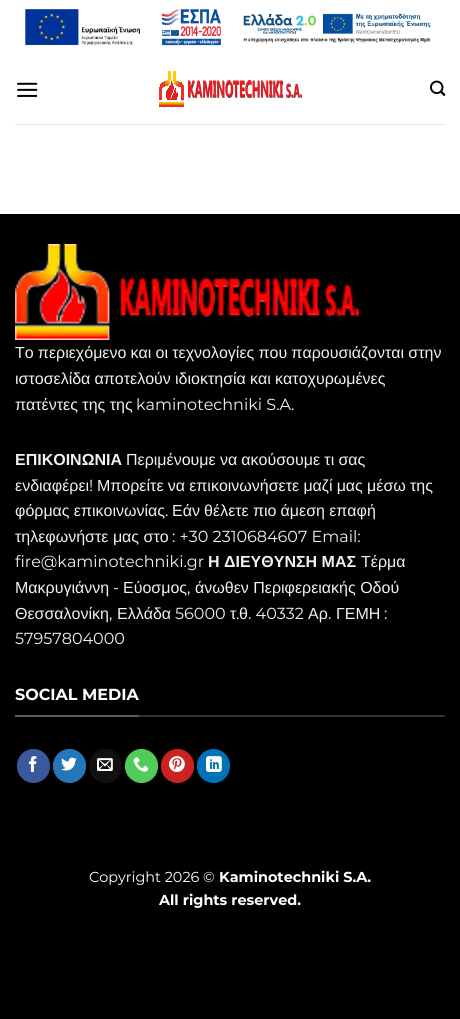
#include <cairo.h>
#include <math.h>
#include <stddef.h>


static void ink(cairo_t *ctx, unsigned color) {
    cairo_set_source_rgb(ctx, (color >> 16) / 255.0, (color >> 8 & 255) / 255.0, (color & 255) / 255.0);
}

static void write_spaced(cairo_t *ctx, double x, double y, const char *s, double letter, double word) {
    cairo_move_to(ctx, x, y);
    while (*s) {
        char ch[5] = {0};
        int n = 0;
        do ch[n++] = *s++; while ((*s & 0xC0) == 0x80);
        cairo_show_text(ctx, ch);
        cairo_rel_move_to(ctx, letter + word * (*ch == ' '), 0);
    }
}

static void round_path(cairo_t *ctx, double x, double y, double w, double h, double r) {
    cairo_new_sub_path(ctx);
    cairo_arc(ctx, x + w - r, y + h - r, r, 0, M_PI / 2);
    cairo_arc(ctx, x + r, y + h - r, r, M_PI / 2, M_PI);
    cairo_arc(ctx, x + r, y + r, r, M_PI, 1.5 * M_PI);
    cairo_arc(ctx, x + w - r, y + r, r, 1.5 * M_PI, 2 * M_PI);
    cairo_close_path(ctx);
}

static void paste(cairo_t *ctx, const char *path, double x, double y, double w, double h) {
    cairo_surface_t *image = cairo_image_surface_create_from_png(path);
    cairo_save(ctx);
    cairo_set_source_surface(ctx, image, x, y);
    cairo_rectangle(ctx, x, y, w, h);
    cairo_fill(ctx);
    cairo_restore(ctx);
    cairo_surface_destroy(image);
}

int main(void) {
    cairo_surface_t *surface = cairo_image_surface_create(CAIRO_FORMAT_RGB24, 460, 1019);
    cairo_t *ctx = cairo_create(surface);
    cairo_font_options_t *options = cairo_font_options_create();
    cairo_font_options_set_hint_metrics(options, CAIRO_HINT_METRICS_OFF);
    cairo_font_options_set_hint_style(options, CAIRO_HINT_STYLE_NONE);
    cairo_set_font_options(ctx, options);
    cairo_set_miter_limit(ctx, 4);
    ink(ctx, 0x000000);
    cairo_paint(ctx);
    ink(ctx, 0xFFFFFF);
    cairo_rectangle(ctx, 0, 0, 460, 214);
    cairo_fill(ctx);
    paste(ctx, "media/1.png", 25, 9, 196, 37);
    paste(ctx, "media/2.png", 243, 13, 188, 30);
    paste(ctx, "media/3.png", 17, 82, 21, 15);
    paste(ctx, "media/4.png", 159, 71, 143, 36);
    paste(ctx, "media/5.png", 430, 80, 16, 16);
    ink(ctx, 0xE6E6E6);
    cairo_rectangle(ctx, 15, 124, 430, 1);
    cairo_fill(ctx);
    paste(ctx, "media/6.png", 15, 244, 344, 96);
    cairo_select_font_face(ctx, "Liberation Sans", CAIRO_FONT_SLANT_NORMAL, CAIRO_FONT_WEIGHT_NORMAL);
    cairo_set_font_size(ctx, 16);
    ink(ctx, 0xF1F1F1);
    write_spaced(ctx, 15, 358, "Το περιεχόμενο και οι τεχνολογίες που παρουσιάζονται στην", 0, -0.25);
    write_spaced(ctx, 15, 384, "ιστοσελίδα αποτελούν ιδιοκτησία και κατοχυρωμένες", 0, -0.25);
    cairo_move_to(ctx, 15, 410);
    cairo_show_text(ctx, "πατέντες της της");
    cairo_select_font_face(ctx, "Montserrat", CAIRO_FONT_SLANT_NORMAL, CAIRO_FONT_WEIGHT_NORMAL);
    cairo_move_to(ctx, 136, 410);
    cairo_show_text(ctx, "kaminotechniki S.A.");
    cairo_select_font_face(ctx, "Liberation Sans", CAIRO_FONT_SLANT_NORMAL, CAIRO_FONT_WEIGHT_BOLD);
    cairo_move_to(ctx, 15, 465);
    cairo_show_text(ctx, "ΕΠΙΚΟΙΝΩΝΙΑ");
    cairo_select_font_face(ctx, "Liberation Sans", CAIRO_FONT_SLANT_NORMAL, CAIRO_FONT_WEIGHT_NORMAL);
    write_spaced(ctx, 126, 465, "Περιμένουμε να ακούσουμε τι σας", 0, -0.25);
    cairo_move_to(ctx, 15, 491);
    cairo_show_text(ctx, "ενδιαφέρει");
    cairo_select_font_face(ctx, "Montserrat", CAIRO_FONT_SLANT_NORMAL, CAIRO_FONT_WEIGHT_NORMAL);
    cairo_move_to(ctx, 89, 491);
    cairo_show_text(ctx, "!");
    cairo_select_font_face(ctx, "Liberation Sans", CAIRO_FONT_SLANT_NORMAL, CAIRO_FONT_WEIGHT_NORMAL);
    write_spaced(ctx, 97, 491, "Μπορείτε να επικοινωνήσετε μαζί μας μέσω της", 0, -0.25);
    write_spaced(ctx, 15, 516, "φόρμας επικοινωνίας", 0, -0.25);
    cairo_select_font_face(ctx, "Montserrat", CAIRO_FONT_SLANT_NORMAL, CAIRO_FONT_WEIGHT_NORMAL);
    cairo_move_to(ctx, 165, 516);
    cairo_show_text(ctx, ".");
    cairo_select_font_face(ctx, "Liberation Sans", CAIRO_FONT_SLANT_NORMAL, CAIRO_FONT_WEIGHT_NORMAL);
    write_spaced(ctx, 172, 516, "Εάν θέλετε πιο άμεση επαφή", 0, -0.25);
    cairo_move_to(ctx, 15, 542);
    cairo_show_text(ctx, "τηλεφωνήστε μας στο");
    cairo_select_font_face(ctx, "Montserrat", CAIRO_FONT_SLANT_NORMAL, CAIRO_FONT_WEIGHT_NORMAL);
    cairo_move_to(ctx, 172, 542);
    cairo_show_text(ctx, ": +30 2310684607 Email:");
    cairo_move_to(ctx, 15, 567);
    cairo_show_text(ctx, "fire@kaminotechniki.gr");
    cairo_select_font_face(ctx, "Liberation Sans", CAIRO_FONT_SLANT_NORMAL, CAIRO_FONT_WEIGHT_BOLD);
    cairo_move_to(ctx, 208, 567);
    cairo_show_text(ctx, "Η ΔΙΕΥΘΥΝΣΗ ΜΑΣ");
    cairo_select_font_face(ctx, "Liberation Sans", CAIRO_FONT_SLANT_NORMAL, CAIRO_FONT_WEIGHT_NORMAL);
    cairo_move_to(ctx, 361, 567);
    cairo_show_text(ctx, "Τέρμα");
    cairo_move_to(ctx, 15, 593);
    cairo_show_text(ctx, "Μακρυγιάννη");
    cairo_select_font_face(ctx, "Montserrat", CAIRO_FONT_SLANT_NORMAL, CAIRO_FONT_WEIGHT_NORMAL);
    cairo_move_to(ctx, 113, 593);
    cairo_show_text(ctx, "-");
    cairo_select_font_face(ctx, "Liberation Sans", CAIRO_FONT_SLANT_NORMAL, CAIRO_FONT_WEIGHT_NORMAL);
    cairo_move_to(ctx, 123, 593);
    cairo_show_text(ctx, "Εύοσμος");
    cairo_move_to(ctx, 195, 593);
    cairo_show_text(ctx, "άνωθεν Περιφερειακής Οδού");
    cairo_select_font_face(ctx, "Montserrat", CAIRO_FONT_SLANT_NORMAL, CAIRO_FONT_WEIGHT_NORMAL);
    cairo_move_to(ctx, 187, 593);
    cairo_show_text(ctx, ",");
    cairo_select_font_face(ctx, "Liberation Sans", CAIRO_FONT_SLANT_NORMAL, CAIRO_FONT_WEIGHT_NORMAL);
    cairo_move_to(ctx, 15, 619);
    cairo_show_text(ctx, "Θεσσαλονίκη");
    cairo_select_font_face(ctx, "Montserrat", CAIRO_FONT_SLANT_NORMAL, CAIRO_FONT_WEIGHT_NORMAL);
    cairo_move_to(ctx, 109, 619);
    cairo_show_text(ctx, ",");
    cairo_select_font_face(ctx, "Liberation Sans", CAIRO_FONT_SLANT_NORMAL, CAIRO_FONT_WEIGHT_NORMAL);
    cairo_move_to(ctx, 117, 619);
    cairo_show_text(ctx, "Ελλάδα");
    cairo_select_font_face(ctx, "Montserrat", CAIRO_FONT_SLANT_NORMAL, CAIRO_FONT_WEIGHT_NORMAL);
    cairo_move_to(ctx, 175, 619);
    cairo_show_text(ctx, "56000");
    cairo_select_font_face(ctx, "Liberation Sans", CAIRO_FONT_SLANT_NORMAL, CAIRO_FONT_WEIGHT_NORMAL);
    cairo_move_to(ctx, 230, 619);
    cairo_show_text(ctx, "τ");
    cairo_select_font_face(ctx, "Montserrat", CAIRO_FONT_SLANT_NORMAL, CAIRO_FONT_WEIGHT_NORMAL);
    cairo_move_to(ctx, 236, 619);
    cairo_show_text(ctx, ".");
    cairo_select_font_face(ctx, "Liberation Sans", CAIRO_FONT_SLANT_NORMAL, CAIRO_FONT_WEIGHT_NORMAL);
    cairo_move_to(ctx, 239, 619);
    cairo_show_text(ctx, "θ");
    cairo_select_font_face(ctx, "Montserrat", CAIRO_FONT_SLANT_NORMAL, CAIRO_FONT_WEIGHT_NORMAL);
    cairo_move_to(ctx, 248, 619);
    cairo_show_text(ctx, ". 40332");
    cairo_select_font_face(ctx, "Liberation Sans", CAIRO_FONT_SLANT_NORMAL, CAIRO_FONT_WEIGHT_NORMAL);
    cairo_move_to(ctx, 308, 619);
    cairo_show_text(ctx, "Αρ");
    cairo_select_font_face(ctx, "Montserrat", CAIRO_FONT_SLANT_NORMAL, CAIRO_FONT_WEIGHT_NORMAL);
    cairo_move_to(ctx, 328, 619);
    cairo_show_text(ctx, ".");
    cairo_select_font_face(ctx, "Liberation Sans", CAIRO_FONT_SLANT_NORMAL, CAIRO_FONT_WEIGHT_NORMAL);
    cairo_move_to(ctx, 336, 619);
    cairo_show_text(ctx, "ΓΕΜΗ");
    cairo_select_font_face(ctx, "Montserrat", CAIRO_FONT_SLANT_NORMAL, CAIRO_FONT_WEIGHT_NORMAL);
    cairo_move_to(ctx, 384, 619);
    cairo_show_text(ctx, ":");
    cairo_move_to(ctx, 15, 644);
    cairo_show_text(ctx, "57957804000");
    ink(ctx, 0x333333);
    cairo_rectangle(ctx, 139, 715, 306, 2);
    cairo_fill(ctx);
    ink(ctx, 0x5C5C5C);
    cairo_rectangle(ctx, 15, 715, 124, 2);
    cairo_fill(ctx);
    cairo_select_font_face(ctx, "Montserrat", CAIRO_FONT_SLANT_NORMAL, CAIRO_FONT_WEIGHT_BOLD);
    ink(ctx, 0xFFFFFF);
    cairo_move_to(ctx, 15, 700);
    cairo_show_text(ctx, "SOCIAL MEDIA");
    ink(ctx, 0x3A589D);
    round_path(ctx, 17.5, 749.5, 32, 33, 16);
    cairo_fill_preserve(ctx);
    cairo_set_line_width(ctx, 1);
    cairo_stroke(ctx);
    paste(ctx, "media/7.png", 28, 756, 9, 16);
    ink(ctx, 0x2478BA);
    round_path(ctx, 53.5, 749.5, 32, 33, 16);
    cairo_fill_preserve(ctx);
    cairo_stroke(ctx);
    paste(ctx, "media/8.png", 61, 757, 16, 14);
    ink(ctx, 0x111111);
    round_path(ctx, 89.5, 749.5, 32, 33, 16);
    cairo_fill_preserve(ctx);
    cairo_stroke(ctx);
    paste(ctx, "media/9.png", 97, 758, 16, 13);
    ink(ctx, 0x51CB5A);
    round_path(ctx, 125.5, 749.5, 32, 33, 16);
    cairo_fill_preserve(ctx);
    cairo_stroke(ctx);
    paste(ctx, "media/10.png", 133, 757, 16, 15);
    ink(ctx, 0xCB2320);
    round_path(ctx, 161.5, 749.5, 32, 33, 16);
    cairo_fill_preserve(ctx);
    cairo_stroke(ctx);
    paste(ctx, "media/11.png", 169, 756, 16, 16);
    ink(ctx, 0x0072B7);
    round_path(ctx, 197.5, 749.5, 32, 33, 16);
    cairo_fill_preserve(ctx);
    cairo_stroke(ctx);
    paste(ctx, "media/12.png", 206, 756, 16, 16);
    cairo_select_font_face(ctx, "Montserrat", CAIRO_FONT_SLANT_NORMAL, CAIRO_FONT_WEIGHT_NORMAL);
    cairo_set_font_size(ctx, 14.4);
    ink(ctx, 0xFFFFFF);
    cairo_move_to(ctx, 89, 882);
    cairo_show_text(ctx, "Copyright 2026 ©");
    cairo_select_font_face(ctx, "Montserrat", CAIRO_FONT_SLANT_NORMAL, CAIRO_FONT_WEIGHT_BOLD);
    cairo_move_to(ctx, 219, 882);
    cairo_show_text(ctx, "Kaminotechniki S.A.");
    cairo_move_to(ctx, 159, 905);
    cairo_show_text(ctx, "All rights reserved.");
    cairo_surface_write_to_png(surface, "image.png");
    cairo_font_options_destroy(options);
    cairo_destroy(ctx);
    cairo_surface_destroy(surface);
    return 0;
}
